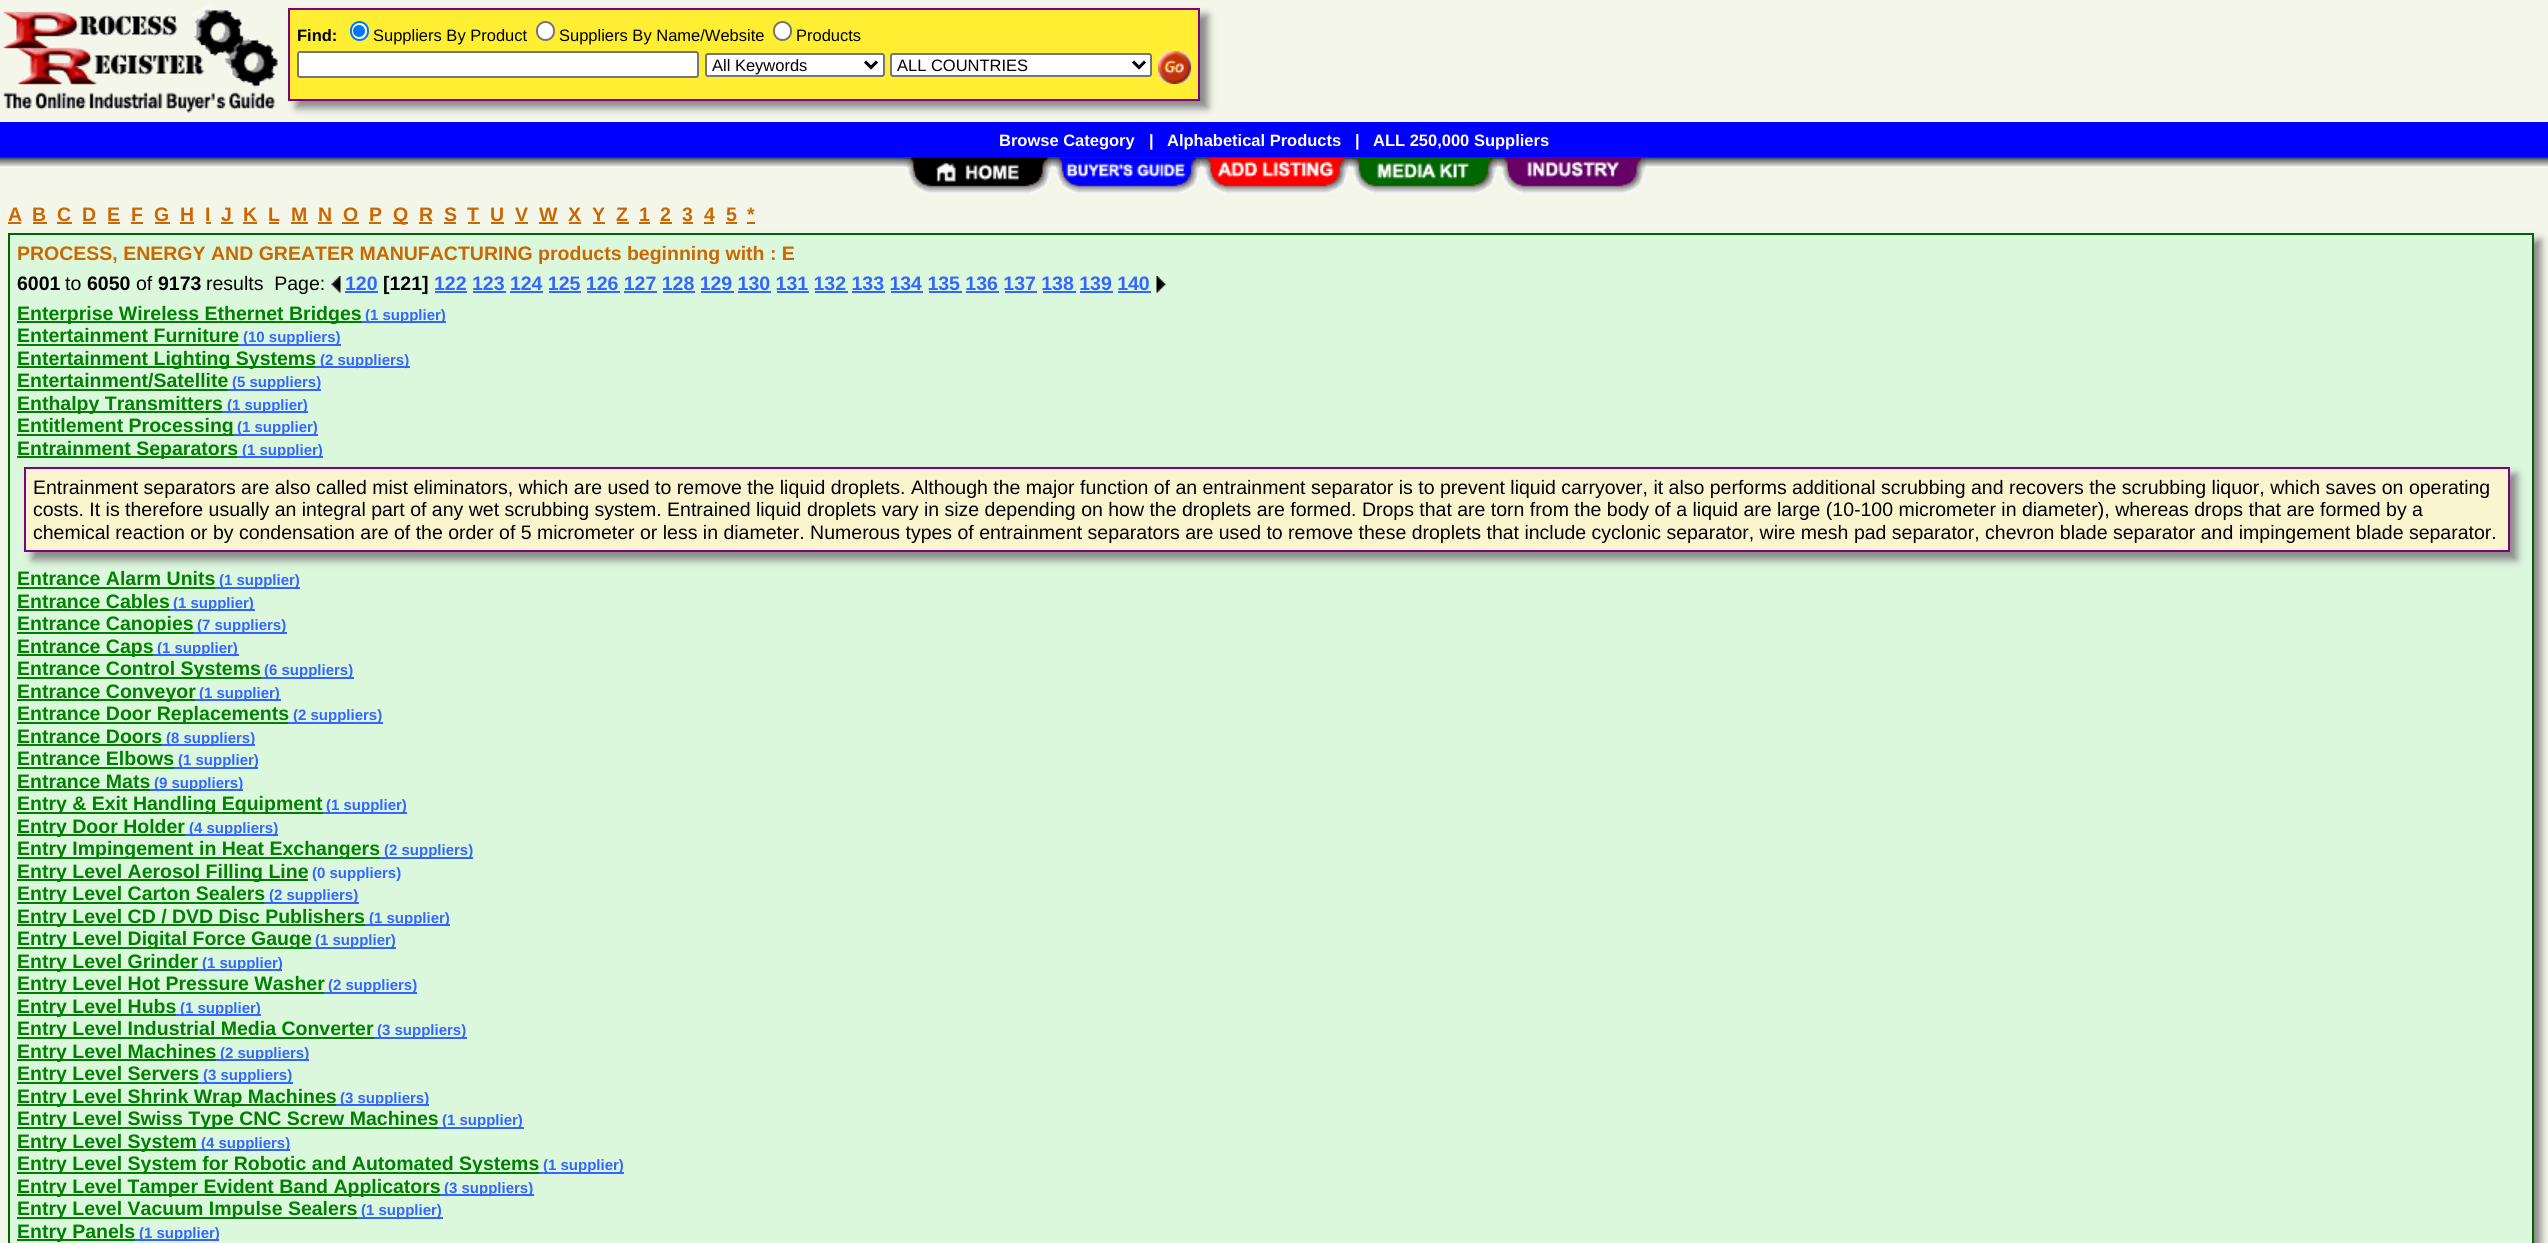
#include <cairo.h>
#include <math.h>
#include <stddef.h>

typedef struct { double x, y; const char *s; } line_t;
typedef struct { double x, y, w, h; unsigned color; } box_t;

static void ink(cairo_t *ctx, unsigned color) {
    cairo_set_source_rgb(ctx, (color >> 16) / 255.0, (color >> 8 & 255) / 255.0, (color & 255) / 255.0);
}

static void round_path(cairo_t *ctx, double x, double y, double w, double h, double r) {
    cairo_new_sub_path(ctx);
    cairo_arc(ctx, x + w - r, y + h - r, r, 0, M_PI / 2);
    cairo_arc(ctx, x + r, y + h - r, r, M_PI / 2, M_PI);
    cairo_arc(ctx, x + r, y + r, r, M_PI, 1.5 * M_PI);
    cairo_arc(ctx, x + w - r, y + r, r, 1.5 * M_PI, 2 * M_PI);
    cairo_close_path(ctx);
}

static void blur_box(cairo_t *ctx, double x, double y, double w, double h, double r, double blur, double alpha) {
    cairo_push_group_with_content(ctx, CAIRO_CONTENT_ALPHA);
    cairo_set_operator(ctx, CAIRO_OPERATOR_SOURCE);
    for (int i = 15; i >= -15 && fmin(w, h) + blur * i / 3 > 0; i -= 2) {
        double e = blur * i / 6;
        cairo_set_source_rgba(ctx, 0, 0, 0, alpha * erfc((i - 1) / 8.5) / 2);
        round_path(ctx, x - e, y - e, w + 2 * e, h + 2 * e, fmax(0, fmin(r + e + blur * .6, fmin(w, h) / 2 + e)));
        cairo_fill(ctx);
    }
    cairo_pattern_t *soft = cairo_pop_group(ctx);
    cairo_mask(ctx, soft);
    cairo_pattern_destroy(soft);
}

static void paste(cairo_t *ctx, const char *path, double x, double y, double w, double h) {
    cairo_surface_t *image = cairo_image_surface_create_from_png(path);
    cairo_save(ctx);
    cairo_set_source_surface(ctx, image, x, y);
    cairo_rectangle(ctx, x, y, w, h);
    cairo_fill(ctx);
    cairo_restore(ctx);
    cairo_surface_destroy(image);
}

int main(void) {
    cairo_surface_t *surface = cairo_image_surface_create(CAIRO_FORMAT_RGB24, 2548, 1243);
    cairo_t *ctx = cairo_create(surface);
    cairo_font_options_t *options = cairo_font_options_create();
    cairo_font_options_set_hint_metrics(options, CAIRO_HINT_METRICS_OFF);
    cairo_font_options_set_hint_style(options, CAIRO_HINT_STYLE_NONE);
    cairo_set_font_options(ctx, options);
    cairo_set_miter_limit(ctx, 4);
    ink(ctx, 0xF3F6E9);
    cairo_paint(ctx);
    paste(ctx, "media/1.png", 2, 3, 277, 110);
    ink(ctx, 0x888888);
    blur_box(ctx, 296, 15, 912, 93, 0, 4, 1);
    ink(ctx, 0xFFEE31);
    cairo_rectangle(ctx, 289, 9, 910, 91);
    cairo_fill_preserve(ctx);
    ink(ctx, 0x800080);
    cairo_stroke(ctx);
    cairo_select_font_face(ctx, "Liberation Sans", CAIRO_FONT_SLANT_NORMAL, CAIRO_FONT_WEIGHT_BOLD);
    cairo_set_font_size(ctx, 16.5);
    ink(ctx, 0x000000);
    cairo_move_to(ctx, 297, 41);
    cairo_show_text(ctx, "Find:");
    ink(ctx, 0xFFFFFF);
    round_path(ctx, 351, 22, 17, 18, 8.5);
    cairo_fill_preserve(ctx);
    ink(ctx, 0x0075FF);
    cairo_stroke(ctx);
    cairo_arc(ctx, 359, 31, 6, 0, 2 * M_PI);
    cairo_fill(ctx);
    cairo_select_font_face(ctx, "Liberation Sans", CAIRO_FONT_SLANT_NORMAL, CAIRO_FONT_WEIGHT_NORMAL);
    ink(ctx, 0x000000);
    cairo_move_to(ctx, 373, 41);
    cairo_show_text(ctx, "Suppliers By Product");
    ink(ctx, 0xFFFFFF);
    round_path(ctx, 537, 22, 17, 18, 8.5);
    cairo_fill_preserve(ctx);
    ink(ctx, 0x767676);
    cairo_stroke(ctx);
    ink(ctx, 0x000000);
    cairo_move_to(ctx, 559, 41);
    cairo_show_text(ctx, "Suppliers By Name/Website");
    ink(ctx, 0xFFFFFF);
    round_path(ctx, 774, 22, 17, 18, 8.5);
    cairo_fill_preserve(ctx);
    ink(ctx, 0x767676);
    cairo_stroke(ctx);
    ink(ctx, 0x000000);
    cairo_move_to(ctx, 796, 41);
    cairo_show_text(ctx, "Products");
    ink(ctx, 0xFFFFFF);
    round_path(ctx, 298, 52, 400, 25, 2);
    cairo_fill_preserve(ctx);
    ink(ctx, 0x767676);
    cairo_stroke(ctx);
    ink(ctx, 0xFFFFFF);
    round_path(ctx, 706, 54, 178, 22, 2);
    cairo_fill_preserve(ctx);
    ink(ctx, 0x767676);
    cairo_stroke(ctx);
    cairo_new_path(ctx);
    cairo_move_to(ctx, 865, 61.5);
    cairo_line_to(ctx, 871, 67.5);
    cairo_line_to(ctx, 877, 61.5);
    ink(ctx, 0x000000);
    cairo_set_line_width(ctx, 3);
    cairo_stroke(ctx);
    cairo_move_to(ctx, 712, 71);
    cairo_show_text(ctx, "All Keywords");
    ink(ctx, 0xFFFFFF);
    round_path(ctx, 891, 54, 260, 22, 2);
    cairo_fill_preserve(ctx);
    ink(ctx, 0x767676);
    cairo_set_line_width(ctx, 2);
    cairo_stroke(ctx);
    cairo_new_path(ctx);
    cairo_move_to(ctx, 1133, 61.5);
    cairo_line_to(ctx, 1139, 67.5);
    cairo_line_to(ctx, 1145, 61.5);
    ink(ctx, 0x000000);
    cairo_set_line_width(ctx, 3);
    cairo_stroke(ctx);
    cairo_move_to(ctx, 897, 71);
    cairo_show_text(ctx, "ALL COUNTRIES");
    paste(ctx, "media/2.png", 1158, 51, 33, 33);
    ink(ctx, 0x0000FF);
    cairo_rectangle(ctx, 0, 122, 2548, 36);
    cairo_fill(ctx);
    cairo_select_font_face(ctx, "Liberation Sans", CAIRO_FONT_SLANT_NORMAL, CAIRO_FONT_WEIGHT_BOLD);
    ink(ctx, 0xFFFFFF);
    {
        static const line_t items[] = {
            {999, 146, "Browse Category"},
            {1149, 146, "|"},
            {1167, 146, "Alphabetical Products"},
            {1355, 146, "|"},
            {1373, 146, "ALL 250,000 Suppliers"},
        };
        for (size_t i = 0; i < sizeof items / sizeof *items; i++) {
            cairo_move_to(ctx, items[i].x, items[i].y);
            cairo_show_text(ctx, items[i].s);
        }
    }
    paste(ctx, "media/3.png", 0, 157, 2548, 11);
    paste(ctx, "media/4.png", 903, 157, 149, 37);
    paste(ctx, "media/5.png", 1051, 157, 149, 37);
    paste(ctx, "media/6.png", 1200, 157, 149, 37);
    paste(ctx, "media/7.png", 1348, 157, 149, 37);
    paste(ctx, "media/8.png", 1497, 157, 149, 37);
    cairo_set_font_size(ctx, 19.5);
    ink(ctx, 0xCC6600);
    cairo_move_to(ctx, 8, 221);
    cairo_show_text(ctx, "A");
    cairo_rectangle(ctx, 8, 222, 13, 2);
    cairo_fill(ctx);
    cairo_move_to(ctx, 32, 221);
    cairo_show_text(ctx, "B");
    cairo_rectangle(ctx, 33, 222, 14, 2);
    cairo_fill(ctx);
    cairo_move_to(ctx, 57, 221);
    cairo_show_text(ctx, "C");
    cairo_rectangle(ctx, 57, 222, 15, 2);
    cairo_fill(ctx);
    cairo_move_to(ctx, 82, 221);
    cairo_show_text(ctx, "D");
    cairo_rectangle(ctx, 83, 222, 13, 2);
    cairo_fill(ctx);
    cairo_move_to(ctx, 107, 221);
    cairo_show_text(ctx, "E");
    cairo_rectangle(ctx, 108, 222, 12, 2);
    cairo_fill(ctx);
    cairo_move_to(ctx, 131, 221);
    cairo_show_text(ctx, "F");
    cairo_rectangle(ctx, 131, 222, 12, 2);
    cairo_fill(ctx);
    cairo_move_to(ctx, 154, 221);
    cairo_show_text(ctx, "G");
    cairo_rectangle(ctx, 155, 222, 15, 2);
    cairo_fill(ctx);
    cairo_move_to(ctx, 180, 221);
    cairo_show_text(ctx, "H");
    cairo_rectangle(ctx, 180, 222, 14, 2);
    cairo_fill(ctx);
    cairo_move_to(ctx, 205, 221);
    cairo_show_text(ctx, "I");
    cairo_rectangle(ctx, 206, 222, 5, 2);
    cairo_fill(ctx);
    cairo_move_to(ctx, 221, 221);
    cairo_show_text(ctx, "J");
    cairo_rectangle(ctx, 221, 222, 12, 2);
    cairo_fill(ctx);
    cairo_move_to(ctx, 243, 221);
    cairo_show_text(ctx, "K");
    cairo_rectangle(ctx, 243, 222, 14, 2);
    cairo_fill(ctx);
    cairo_move_to(ctx, 268, 221);
    cairo_show_text(ctx, "L");
    cairo_rectangle(ctx, 269, 222, 10, 2);
    cairo_fill(ctx);
    cairo_move_to(ctx, 291, 221);
    cairo_show_text(ctx, "M");
    cairo_rectangle(ctx, 291, 222, 17, 2);
    cairo_fill(ctx);
    cairo_move_to(ctx, 318, 221);
    cairo_show_text(ctx, "N");
    cairo_rectangle(ctx, 318, 222, 14, 2);
    cairo_fill(ctx);
    cairo_move_to(ctx, 343, 221);
    cairo_show_text(ctx, "O");
    cairo_rectangle(ctx, 342, 222, 17, 2);
    cairo_fill(ctx);
    cairo_move_to(ctx, 369, 221);
    cairo_show_text(ctx, "P");
    cairo_rectangle(ctx, 369, 222, 12, 2);
    cairo_fill(ctx);
    cairo_rectangle(ctx, 393, 222, 15, 2);
    cairo_fill(ctx);
    cairo_move_to(ctx, 393, 221);
    cairo_show_text(ctx, "Q");
    cairo_move_to(ctx, 419, 221);
    cairo_show_text(ctx, "R");
    cairo_rectangle(ctx, 419, 222, 13, 2);
    cairo_fill(ctx);
    cairo_move_to(ctx, 444, 221);
    cairo_show_text(ctx, "S");
    cairo_rectangle(ctx, 444, 222, 12, 2);
    cairo_fill(ctx);
    cairo_move_to(ctx, 467, 221);
    cairo_show_text(ctx, "T");
    cairo_rectangle(ctx, 468, 222, 12, 2);
    cairo_fill(ctx);
    cairo_move_to(ctx, 490, 221);
    cairo_show_text(ctx, "U");
    cairo_rectangle(ctx, 491, 222, 13, 2);
    cairo_fill(ctx);
    cairo_move_to(ctx, 515, 221);
    cairo_show_text(ctx, "V");
    cairo_rectangle(ctx, 515, 222, 13, 2);
    cairo_fill(ctx);
    cairo_move_to(ctx, 539, 221);
    cairo_show_text(ctx, "W");
    cairo_rectangle(ctx, 539, 222, 19, 2);
    cairo_fill(ctx);
    cairo_move_to(ctx, 568, 221);
    cairo_show_text(ctx, "X");
    cairo_rectangle(ctx, 569, 222, 12, 2);
    cairo_fill(ctx);
    cairo_move_to(ctx, 592, 221);
    cairo_show_text(ctx, "Y");
    cairo_rectangle(ctx, 593, 222, 12, 2);
    cairo_fill(ctx);
    cairo_move_to(ctx, 616, 221);
    cairo_show_text(ctx, "Z");
    cairo_rectangle(ctx, 617, 222, 12, 2);
    cairo_fill(ctx);
    cairo_move_to(ctx, 639, 221);
    cairo_show_text(ctx, "1");
    cairo_rectangle(ctx, 639, 222, 11, 2);
    cairo_fill(ctx);
    cairo_move_to(ctx, 660, 221);
    cairo_show_text(ctx, "2");
    cairo_rectangle(ctx, 660, 222, 12, 2);
    cairo_fill(ctx);
    cairo_move_to(ctx, 682, 221);
    cairo_show_text(ctx, "3");
    cairo_rectangle(ctx, 683, 222, 10, 2);
    cairo_fill(ctx);
    cairo_move_to(ctx, 704, 221);
    cairo_show_text(ctx, "4");
    cairo_rectangle(ctx, 704, 222, 10, 2);
    cairo_fill(ctx);
    cairo_move_to(ctx, 726, 221);
    cairo_show_text(ctx, "5");
    cairo_rectangle(ctx, 726, 222, 11, 2);
    cairo_fill(ctx);
    cairo_move_to(ctx, 747, 221);
    cairo_show_text(ctx, "*");
    cairo_rectangle(ctx, 747, 222, 8, 2);
    cairo_fill(ctx);
    ink(ctx, 0x888888);
    blur_box(ctx, 15, 240, 2526, 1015, 0, 4, 1);
    ink(ctx, 0xDBF7DC);
    cairo_rectangle(ctx, 9, 234, 2524, 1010);
    cairo_fill_preserve(ctx);
    ink(ctx, 0x006600);
    cairo_set_line_width(ctx, 2);
    cairo_stroke(ctx);
    ink(ctx, 0xCC6600);
    cairo_move_to(ctx, 17, 260);
    cairo_show_text(ctx, "PROCESS, ENERGY AND GREATER MANUFACTURING products beginning with : E");
    ink(ctx, 0x000000);
    cairo_move_to(ctx, 17, 290);
    cairo_show_text(ctx, "6001");
    cairo_select_font_face(ctx, "Liberation Sans", CAIRO_FONT_SLANT_NORMAL, CAIRO_FONT_WEIGHT_NORMAL);
    cairo_move_to(ctx, 65, 290);
    cairo_show_text(ctx, "to");
    cairo_select_font_face(ctx, "Liberation Sans", CAIRO_FONT_SLANT_NORMAL, CAIRO_FONT_WEIGHT_BOLD);
    cairo_move_to(ctx, 87, 290);
    cairo_show_text(ctx, "6050");
    cairo_select_font_face(ctx, "Liberation Sans", CAIRO_FONT_SLANT_NORMAL, CAIRO_FONT_WEIGHT_NORMAL);
    cairo_move_to(ctx, 136, 290);
    cairo_show_text(ctx, "of");
    cairo_select_font_face(ctx, "Liberation Sans", CAIRO_FONT_SLANT_NORMAL, CAIRO_FONT_WEIGHT_BOLD);
    cairo_move_to(ctx, 158, 290);
    cairo_show_text(ctx, "9173");
    cairo_select_font_face(ctx, "Liberation Sans", CAIRO_FONT_SLANT_NORMAL, CAIRO_FONT_WEIGHT_NORMAL);
    cairo_move_to(ctx, 206, 290);
    cairo_show_text(ctx, "results  Page:");
    paste(ctx, "media/9.png", 331, 276, 10, 17);
    cairo_select_font_face(ctx, "Liberation Sans", CAIRO_FONT_SLANT_NORMAL, CAIRO_FONT_WEIGHT_BOLD);
    ink(ctx, 0x3366FF);
    cairo_move_to(ctx, 345, 290);
    cairo_show_text(ctx, "120");
    cairo_rectangle(ctx, 345, 291, 33, 2);
    cairo_fill(ctx);
    ink(ctx, 0x000000);
    cairo_move_to(ctx, 383, 290);
    cairo_show_text(ctx, "[121]");
    ink(ctx, 0x3366FF);
    cairo_move_to(ctx, 434, 290);
    cairo_show_text(ctx, "122 123 124 125 126 127 128 129 130 131 132 133 134 135 136 137 138 139 140");
    cairo_rectangle(ctx, 435, 291, 32, 2);
    cairo_fill(ctx);
    paste(ctx, "media/10.png", 1156, 276, 10, 17);
    {
        static const box_t items[] = {
            {473, 291, 33, 2, 0x3366FF},
            {510, 291, 33, 2, 0x3366FF},
            {549, 291, 32, 2, 0x3366FF},
            {587, 291, 33, 2, 0x3366FF},
            {624, 291, 33, 2, 0x3366FF},
            {663, 291, 32, 2, 0x3366FF},
            {701, 291, 33, 2, 0x3366FF},
            {738, 291, 33, 2, 0x3366FF},
            {777, 291, 32, 2, 0x3366FF},
            {815, 291, 33, 2, 0x3366FF},
            {852, 291, 33, 2, 0x3366FF},
            {891, 291, 32, 2, 0x3366FF},
            {929, 291, 33, 2, 0x3366FF},
            {966, 291, 33, 2, 0x3366FF},
            {1005, 291, 32, 2, 0x3366FF},
            {1043, 291, 33, 2, 0x3366FF},
            {1080, 291, 33, 2, 0x3366FF},
            {1118, 291, 33, 2, 0x3366FF},
            {17, 321, 345, 2, 0x008000},
        };
        for (size_t i = 0; i < sizeof items / sizeof *items; i++) {
            ink(ctx, items[i].color);
            cairo_rectangle(ctx, items[i].x, items[i].y, items[i].w, items[i].h);
            cairo_fill(ctx);
        }
    }
    cairo_move_to(ctx, 17, 320);
    cairo_show_text(ctx, "Enterprise Wireless Ethernet Bridges");
    ink(ctx, 0x3366FF);
    cairo_rectangle(ctx, 362, 321, 84, 2);
    cairo_fill(ctx);
    cairo_set_font_size(ctx, 15);
    cairo_move_to(ctx, 365, 320);
    cairo_show_text(ctx, "(1 supplier)");
    cairo_set_font_size(ctx, 19.5);
    ink(ctx, 0x008000);
    cairo_move_to(ctx, 17, 342);
    cairo_show_text(ctx, "Entertainment Furniture");
    cairo_rectangle(ctx, 17, 344, 222, 2);
    cairo_fill(ctx);
    ink(ctx, 0x3366FF);
    cairo_rectangle(ctx, 239, 344, 102, 2);
    cairo_fill(ctx);
    cairo_set_font_size(ctx, 15);
    cairo_move_to(ctx, 243, 342);
    cairo_show_text(ctx, "(10 suppliers)");
    ink(ctx, 0x008000);
    cairo_rectangle(ctx, 17, 366, 298, 2);
    cairo_fill(ctx);
    cairo_set_font_size(ctx, 19.5);
    cairo_move_to(ctx, 17, 365);
    cairo_show_text(ctx, "Entertainment Lighting Systems");
    ink(ctx, 0x3366FF);
    cairo_rectangle(ctx, 315, 366, 95, 2);
    cairo_fill(ctx);
    cairo_set_font_size(ctx, 15);
    cairo_move_to(ctx, 320, 365);
    cairo_show_text(ctx, "(2 suppliers)");
    cairo_set_font_size(ctx, 19.5);
    ink(ctx, 0x008000);
    cairo_move_to(ctx, 17, 387);
    cairo_show_text(ctx, "Entertainment/Satellite");
    cairo_rectangle(ctx, 17, 389, 211, 2);
    cairo_fill(ctx);
    ink(ctx, 0x3366FF);
    cairo_rectangle(ctx, 228, 389, 93, 2);
    cairo_fill(ctx);
    cairo_set_font_size(ctx, 15);
    cairo_move_to(ctx, 232, 387);
    cairo_show_text(ctx, "(5 suppliers)");
    ink(ctx, 0x008000);
    cairo_rectangle(ctx, 17, 411, 205, 2);
    cairo_fill(ctx);
    cairo_set_font_size(ctx, 19.5);
    cairo_move_to(ctx, 17, 410);
    cairo_show_text(ctx, "Enthalpy Transmitters");
    ink(ctx, 0x3366FF);
    cairo_rectangle(ctx, 222, 411, 86, 2);
    cairo_fill(ctx);
    cairo_set_font_size(ctx, 15);
    cairo_move_to(ctx, 227, 410);
    cairo_show_text(ctx, "(1 supplier)");
    ink(ctx, 0x008000);
    cairo_rectangle(ctx, 17, 434, 216, 2);
    cairo_fill(ctx);
    cairo_set_font_size(ctx, 19.5);
    cairo_move_to(ctx, 17, 432);
    cairo_show_text(ctx, "Entitlement Processing");
    ink(ctx, 0x3366FF);
    cairo_rectangle(ctx, 233, 434, 85, 2);
    cairo_fill(ctx);
    cairo_set_font_size(ctx, 15);
    cairo_move_to(ctx, 237, 432);
    cairo_show_text(ctx, "(1 supplier)");
    ink(ctx, 0x008000);
    cairo_rectangle(ctx, 17, 456, 220, 2);
    cairo_fill(ctx);
    cairo_set_font_size(ctx, 19.5);
    cairo_move_to(ctx, 17, 455);
    cairo_show_text(ctx, "Entrainment Separators");
    ink(ctx, 0x3366FF);
    cairo_rectangle(ctx, 237, 456, 86, 2);
    cairo_fill(ctx);
    cairo_set_font_size(ctx, 15);
    cairo_move_to(ctx, 242, 455);
    cairo_show_text(ctx, "(1 supplier)");
    ink(ctx, 0x888888);
    blur_box(ctx, 32, 474, 2485, 86, 0, 4, 1);
    ink(ctx, 0xFBF5CF);
    cairo_rectangle(ctx, 25, 468, 2484, 83);
    cairo_fill_preserve(ctx);
    ink(ctx, 0x800080);
    cairo_stroke(ctx);
    cairo_select_font_face(ctx, "Liberation Sans", CAIRO_FONT_SLANT_NORMAL, CAIRO_FONT_WEIGHT_NORMAL);
    cairo_set_font_size(ctx, 19.5);
    ink(ctx, 0x000000);
    {
        static const line_t items[] = {
            {33, 494, "Entrainment separators are also called mist eliminators, which are used to remove the liquid droplets. Although the major function of an entrainment separator is to prevent liquid carryover, it also performs additional scrubbing and recovers the scrubbing liquor, which saves on operating"},
            {33, 516, "costs. It is therefore usually an integral part of any wet scrubbing system. Entrained liquid droplets vary in size depending on how the droplets are formed. Drops that are torn from the body of a liquid are large (10-100 micrometer in diameter), whereas drops that are formed by a"},
            {33, 539, "chemical reaction or by condensation are of the order of 5 micrometer or less in diameter. Numerous types of entrainment separators are used to remove these droplets that include cyclonic separator, wire mesh pad separator, chevron blade separator and impingement blade separator."},
        };
        for (size_t i = 0; i < sizeof items / sizeof *items; i++) {
            cairo_move_to(ctx, items[i].x, items[i].y);
            cairo_show_text(ctx, items[i].s);
        }
    }
    cairo_select_font_face(ctx, "Liberation Sans", CAIRO_FONT_SLANT_NORMAL, CAIRO_FONT_WEIGHT_BOLD);
    ink(ctx, 0x008000);
    cairo_move_to(ctx, 17, 585);
    cairo_show_text(ctx, "Entrance Alarm Units");
    cairo_rectangle(ctx, 17, 587, 198, 2);
    cairo_fill(ctx);
    ink(ctx, 0x3366FF);
    cairo_rectangle(ctx, 215, 587, 85, 2);
    cairo_fill(ctx);
    cairo_set_font_size(ctx, 15);
    cairo_move_to(ctx, 219, 585);
    cairo_show_text(ctx, "(1 supplier)");
    cairo_set_font_size(ctx, 19.5);
    ink(ctx, 0x008000);
    cairo_move_to(ctx, 17, 608);
    cairo_show_text(ctx, "Entrance Cables");
    cairo_rectangle(ctx, 17, 609, 153, 2);
    cairo_fill(ctx);
    ink(ctx, 0x3366FF);
    cairo_rectangle(ctx, 170, 609, 85, 2);
    cairo_fill(ctx);
    cairo_set_font_size(ctx, 15);
    cairo_move_to(ctx, 173, 608);
    cairo_show_text(ctx, "(1 supplier)");
    ink(ctx, 0x008000);
    cairo_rectangle(ctx, 17, 632, 177, 2);
    cairo_fill(ctx);
    cairo_set_font_size(ctx, 19.5);
    cairo_move_to(ctx, 17, 630);
    cairo_show_text(ctx, "Entrance Canopies");
    ink(ctx, 0x3366FF);
    cairo_rectangle(ctx, 194, 632, 93, 2);
    cairo_fill(ctx);
    cairo_set_font_size(ctx, 15);
    cairo_move_to(ctx, 197, 630);
    cairo_show_text(ctx, "(7 suppliers)");
    ink(ctx, 0x008000);
    cairo_rectangle(ctx, 17, 654, 136, 2);
    cairo_fill(ctx);
    cairo_set_font_size(ctx, 19.5);
    cairo_move_to(ctx, 17, 653);
    cairo_show_text(ctx, "Entrance Caps");
    ink(ctx, 0x3366FF);
    cairo_rectangle(ctx, 153, 654, 86, 2);
    cairo_fill(ctx);
    cairo_set_font_size(ctx, 15);
    cairo_move_to(ctx, 157, 653);
    cairo_show_text(ctx, "(1 supplier)");
    ink(ctx, 0x008000);
    cairo_rectangle(ctx, 17, 677, 244, 2);
    cairo_fill(ctx);
    cairo_set_font_size(ctx, 19.5);
    cairo_move_to(ctx, 17, 675);
    cairo_show_text(ctx, "Entrance Control Systems");
    ink(ctx, 0x3366FF);
    cairo_rectangle(ctx, 261, 677, 93, 2);
    cairo_fill(ctx);
    cairo_set_font_size(ctx, 15);
    cairo_move_to(ctx, 264, 675);
    cairo_show_text(ctx, "(6 suppliers)");
    ink(ctx, 0x008000);
    cairo_rectangle(ctx, 17, 699, 178, 2);
    cairo_fill(ctx);
    cairo_set_font_size(ctx, 19.5);
    cairo_move_to(ctx, 17, 698);
    cairo_show_text(ctx, "Entrance Conveyor");
    ink(ctx, 0x3366FF);
    cairo_rectangle(ctx, 195, 699, 86, 2);
    cairo_fill(ctx);
    cairo_set_font_size(ctx, 15);
    cairo_move_to(ctx, 199, 698);
    cairo_show_text(ctx, "(1 supplier)");
    ink(ctx, 0x008000);
    cairo_rectangle(ctx, 17, 722, 271, 2);
    cairo_fill(ctx);
    cairo_set_font_size(ctx, 19.5);
    cairo_move_to(ctx, 17, 720);
    cairo_show_text(ctx, "Entrance Door Replacements");
    ink(ctx, 0x3366FF);
    cairo_rectangle(ctx, 288, 722, 95, 2);
    cairo_fill(ctx);
    cairo_set_font_size(ctx, 15);
    cairo_move_to(ctx, 293, 720);
    cairo_show_text(ctx, "(2 suppliers)");
    cairo_set_font_size(ctx, 19.5);
    ink(ctx, 0x008000);
    cairo_move_to(ctx, 17, 743);
    cairo_show_text(ctx, "Entrance Doors");
    cairo_rectangle(ctx, 17, 744, 145, 2);
    cairo_fill(ctx);
    ink(ctx, 0x3366FF);
    cairo_rectangle(ctx, 162, 744, 93, 2);
    cairo_fill(ctx);
    cairo_set_font_size(ctx, 15);
    cairo_move_to(ctx, 166, 743);
    cairo_show_text(ctx, "(8 suppliers)");
    cairo_set_font_size(ctx, 19.5);
    ink(ctx, 0x008000);
    cairo_move_to(ctx, 17, 765);
    cairo_show_text(ctx, "Entrance Elbows");
    cairo_rectangle(ctx, 17, 767, 157, 2);
    cairo_fill(ctx);
    ink(ctx, 0x3366FF);
    cairo_rectangle(ctx, 174, 767, 84, 2);
    cairo_fill(ctx);
    cairo_set_font_size(ctx, 15);
    cairo_move_to(ctx, 178, 765);
    cairo_show_text(ctx, "(1 supplier)");
    cairo_set_font_size(ctx, 19.5);
    ink(ctx, 0x008000);
    cairo_move_to(ctx, 17, 788);
    cairo_show_text(ctx, "Entrance Mats");
    cairo_rectangle(ctx, 17, 789, 133, 2);
    cairo_fill(ctx);
    ink(ctx, 0x3366FF);
    cairo_rectangle(ctx, 150, 789, 93, 2);
    cairo_fill(ctx);
    cairo_set_font_size(ctx, 15);
    cairo_move_to(ctx, 154, 788);
    cairo_show_text(ctx, "(9 suppliers)");
    ink(ctx, 0x008000);
    cairo_rectangle(ctx, 17, 812, 306, 2);
    cairo_fill(ctx);
    cairo_set_font_size(ctx, 19.5);
    cairo_move_to(ctx, 17, 810);
    cairo_show_text(ctx, "Entry & Exit Handling Equipment");
    ink(ctx, 0x3366FF);
    cairo_rectangle(ctx, 323, 812, 84, 2);
    cairo_fill(ctx);
    cairo_set_font_size(ctx, 15);
    cairo_move_to(ctx, 326, 810);
    cairo_show_text(ctx, "(1 supplier)");
    ink(ctx, 0x008000);
    cairo_rectangle(ctx, 17, 834, 168, 2);
    cairo_fill(ctx);
    cairo_set_font_size(ctx, 19.5);
    cairo_move_to(ctx, 17, 833);
    cairo_show_text(ctx, "Entry Door Holder");
    ink(ctx, 0x3366FF);
    cairo_rectangle(ctx, 185, 834, 93, 2);
    cairo_fill(ctx);
    cairo_set_font_size(ctx, 15);
    cairo_move_to(ctx, 189, 833);
    cairo_show_text(ctx, "(4 suppliers)");
    ink(ctx, 0x008000);
    cairo_rectangle(ctx, 17, 857, 363, 2);
    cairo_fill(ctx);
    cairo_set_font_size(ctx, 19.5);
    cairo_move_to(ctx, 17, 855);
    cairo_show_text(ctx, "Entry Impingement in Heat Exchangers");
    ink(ctx, 0x3366FF);
    cairo_rectangle(ctx, 380, 857, 93, 2);
    cairo_fill(ctx);
    cairo_set_font_size(ctx, 15);
    cairo_move_to(ctx, 384, 855);
    cairo_show_text(ctx, "(2 suppliers)");
    ink(ctx, 0x008000);
    cairo_rectangle(ctx, 17, 879, 291, 2);
    cairo_fill(ctx);
    cairo_set_font_size(ctx, 19.5);
    cairo_move_to(ctx, 17, 878);
    cairo_show_text(ctx, "Entry Level Aerosol Filling Line");
    cairo_set_font_size(ctx, 15);
    ink(ctx, 0x3366FF);
    cairo_move_to(ctx, 312, 878);
    cairo_show_text(ctx, "(0 suppliers)");
    ink(ctx, 0x008000);
    cairo_rectangle(ctx, 17, 902, 247, 2);
    cairo_fill(ctx);
    cairo_set_font_size(ctx, 19.5);
    cairo_move_to(ctx, 17, 900);
    cairo_show_text(ctx, "Entry Level Carton Sealers");
    ink(ctx, 0x3366FF);
    cairo_rectangle(ctx, 264, 902, 95, 2);
    cairo_fill(ctx);
    cairo_set_font_size(ctx, 15);
    cairo_move_to(ctx, 269, 900);
    cairo_show_text(ctx, "(2 suppliers)");
    ink(ctx, 0x008000);
    cairo_rectangle(ctx, 17, 924, 348, 2);
    cairo_fill(ctx);
    cairo_set_font_size(ctx, 19.5);
    cairo_move_to(ctx, 17, 923);
    cairo_show_text(ctx, "Entry Level CD / DVD Disc Publishers");
    ink(ctx, 0x3366FF);
    cairo_rectangle(ctx, 365, 924, 85, 2);
    cairo_fill(ctx);
    cairo_set_font_size(ctx, 15);
    cairo_move_to(ctx, 369, 923);
    cairo_show_text(ctx, "(1 supplier)");
    ink(ctx, 0x008000);
    cairo_rectangle(ctx, 17, 947, 295, 2);
    cairo_fill(ctx);
    cairo_set_font_size(ctx, 19.5);
    cairo_move_to(ctx, 17, 945);
    cairo_show_text(ctx, "Entry Level Digital Force Gauge");
    ink(ctx, 0x3366FF);
    cairo_rectangle(ctx, 312, 947, 84, 2);
    cairo_fill(ctx);
    cairo_set_font_size(ctx, 15);
    cairo_move_to(ctx, 315, 945);
    cairo_show_text(ctx, "(1 supplier)");
    ink(ctx, 0x008000);
    cairo_rectangle(ctx, 17, 969, 181, 2);
    cairo_fill(ctx);
    cairo_set_font_size(ctx, 19.5);
    cairo_move_to(ctx, 17, 968);
    cairo_show_text(ctx, "Entry Level Grinder");
    ink(ctx, 0x3366FF);
    cairo_rectangle(ctx, 198, 969, 84, 2);
    cairo_fill(ctx);
    cairo_set_font_size(ctx, 15);
    cairo_move_to(ctx, 202, 968);
    cairo_show_text(ctx, "(1 supplier)");
    ink(ctx, 0x008000);
    cairo_rectangle(ctx, 17, 992, 307, 2);
    cairo_fill(ctx);
    cairo_set_font_size(ctx, 19.5);
    cairo_move_to(ctx, 17, 990);
    cairo_show_text(ctx, "Entry Level Hot Pressure Washer");
    ink(ctx, 0x3366FF);
    cairo_rectangle(ctx, 324, 992, 93, 2);
    cairo_fill(ctx);
    cairo_set_font_size(ctx, 15);
    cairo_move_to(ctx, 328, 990);
    cairo_show_text(ctx, "(2 suppliers)");
    ink(ctx, 0x008000);
    cairo_rectangle(ctx, 17, 1014, 159, 2);
    cairo_fill(ctx);
    cairo_set_font_size(ctx, 19.5);
    cairo_move_to(ctx, 17, 1013);
    cairo_show_text(ctx, "Entry Level Hubs");
    ink(ctx, 0x3366FF);
    cairo_rectangle(ctx, 176, 1014, 85, 2);
    cairo_fill(ctx);
    cairo_set_font_size(ctx, 15);
    cairo_move_to(ctx, 180, 1013);
    cairo_show_text(ctx, "(1 supplier)");
    ink(ctx, 0x008000);
    cairo_rectangle(ctx, 17, 1037, 357, 2);
    cairo_fill(ctx);
    cairo_set_font_size(ctx, 19.5);
    cairo_move_to(ctx, 17, 1035);
    cairo_show_text(ctx, "Entry Level Industrial Media Converter");
    ink(ctx, 0x3366FF);
    cairo_rectangle(ctx, 374, 1037, 93, 2);
    cairo_fill(ctx);
    cairo_set_font_size(ctx, 15);
    cairo_move_to(ctx, 377, 1035);
    cairo_show_text(ctx, "(3 suppliers)");
    ink(ctx, 0x008000);
    cairo_rectangle(ctx, 17, 1059, 199, 2);
    cairo_fill(ctx);
    cairo_set_font_size(ctx, 19.5);
    cairo_move_to(ctx, 17, 1058);
    cairo_show_text(ctx, "Entry Level Machines");
    ink(ctx, 0x3366FF);
    cairo_rectangle(ctx, 216, 1059, 93, 2);
    cairo_fill(ctx);
    cairo_set_font_size(ctx, 15);
    cairo_move_to(ctx, 220, 1058);
    cairo_show_text(ctx, "(2 suppliers)");
    ink(ctx, 0x008000);
    cairo_rectangle(ctx, 17, 1082, 181, 2);
    cairo_fill(ctx);
    cairo_set_font_size(ctx, 19.5);
    cairo_move_to(ctx, 17, 1080);
    cairo_show_text(ctx, "Entry Level Servers");
    ink(ctx, 0x3366FF);
    cairo_rectangle(ctx, 198, 1082, 95, 2);
    cairo_fill(ctx);
    cairo_set_font_size(ctx, 15);
    cairo_move_to(ctx, 203, 1080);
    cairo_show_text(ctx, "(3 suppliers)");
    ink(ctx, 0x008000);
    cairo_rectangle(ctx, 17, 1104, 319, 2);
    cairo_fill(ctx);
    cairo_set_font_size(ctx, 19.5);
    cairo_move_to(ctx, 17, 1103);
    cairo_show_text(ctx, "Entry Level Shrink Wrap Machines");
    ink(ctx, 0x3366FF);
    cairo_rectangle(ctx, 336, 1104, 93, 2);
    cairo_fill(ctx);
    cairo_set_font_size(ctx, 15);
    cairo_move_to(ctx, 340, 1103);
    cairo_show_text(ctx, "(3 suppliers)");
    ink(ctx, 0x008000);
    cairo_rectangle(ctx, 17, 1127, 421, 2);
    cairo_fill(ctx);
    cairo_set_font_size(ctx, 19.5);
    cairo_move_to(ctx, 17, 1125);
    cairo_show_text(ctx, "Entry Level Swiss Type CNC Screw Machines");
    ink(ctx, 0x3366FF);
    cairo_rectangle(ctx, 438, 1127, 86, 2);
    cairo_fill(ctx);
    cairo_set_font_size(ctx, 15);
    cairo_move_to(ctx, 442, 1125);
    cairo_show_text(ctx, "(1 supplier)");
    ink(ctx, 0x008000);
    cairo_rectangle(ctx, 17, 1149, 180, 2);
    cairo_fill(ctx);
    cairo_set_font_size(ctx, 19.5);
    cairo_move_to(ctx, 17, 1148);
    cairo_show_text(ctx, "Entry Level System");
    ink(ctx, 0x3366FF);
    cairo_rectangle(ctx, 197, 1149, 93, 2);
    cairo_fill(ctx);
    cairo_set_font_size(ctx, 15);
    cairo_move_to(ctx, 201, 1148);
    cairo_show_text(ctx, "(4 suppliers)");
    ink(ctx, 0x008000);
    cairo_rectangle(ctx, 17, 1172, 522, 2);
    cairo_fill(ctx);
    cairo_set_font_size(ctx, 19.5);
    cairo_move_to(ctx, 17, 1170);
    cairo_show_text(ctx, "Entry Level System for Robotic and Automated Systems");
    ink(ctx, 0x3366FF);
    cairo_rectangle(ctx, 539, 1172, 85, 2);
    cairo_fill(ctx);
    cairo_set_font_size(ctx, 15);
    cairo_move_to(ctx, 543, 1170);
    cairo_show_text(ctx, "(1 supplier)");
    ink(ctx, 0x008000);
    cairo_rectangle(ctx, 17, 1194, 423, 2);
    cairo_fill(ctx);
    cairo_set_font_size(ctx, 19.5);
    cairo_move_to(ctx, 17, 1193);
    cairo_show_text(ctx, "Entry Level Tamper Evident Band Applicators");
    ink(ctx, 0x3366FF);
    cairo_rectangle(ctx, 440, 1194, 94, 2);
    cairo_fill(ctx);
    cairo_set_font_size(ctx, 15);
    cairo_move_to(ctx, 444, 1193);
    cairo_show_text(ctx, "(3 suppliers)");
    ink(ctx, 0x008000);
    cairo_rectangle(ctx, 17, 1217, 340, 2);
    cairo_fill(ctx);
    cairo_set_font_size(ctx, 19.5);
    cairo_move_to(ctx, 17, 1215);
    cairo_show_text(ctx, "Entry Level Vacuum Impulse Sealers");
    ink(ctx, 0x3366FF);
    cairo_rectangle(ctx, 357, 1217, 86, 2);
    cairo_fill(ctx);
    cairo_set_font_size(ctx, 15);
    cairo_move_to(ctx, 361, 1215);
    cairo_show_text(ctx, "(1 supplier)");
    ink(ctx, 0x008000);
    cairo_rectangle(ctx, 17, 1239, 118, 2);
    cairo_fill(ctx);
    cairo_set_font_size(ctx, 19.5);
    cairo_move_to(ctx, 17, 1238);
    cairo_show_text(ctx, "Entry Panels");
    ink(ctx, 0x3366FF);
    cairo_rectangle(ctx, 135, 1239, 84, 2);
    cairo_fill(ctx);
    cairo_set_font_size(ctx, 15);
    cairo_move_to(ctx, 139, 1238);
    cairo_show_text(ctx, "(1 supplier)");
    cairo_surface_write_to_png(surface, "image.png");
    cairo_font_options_destroy(options);
    cairo_destroy(ctx);
    cairo_surface_destroy(surface);
    return 0;
}
